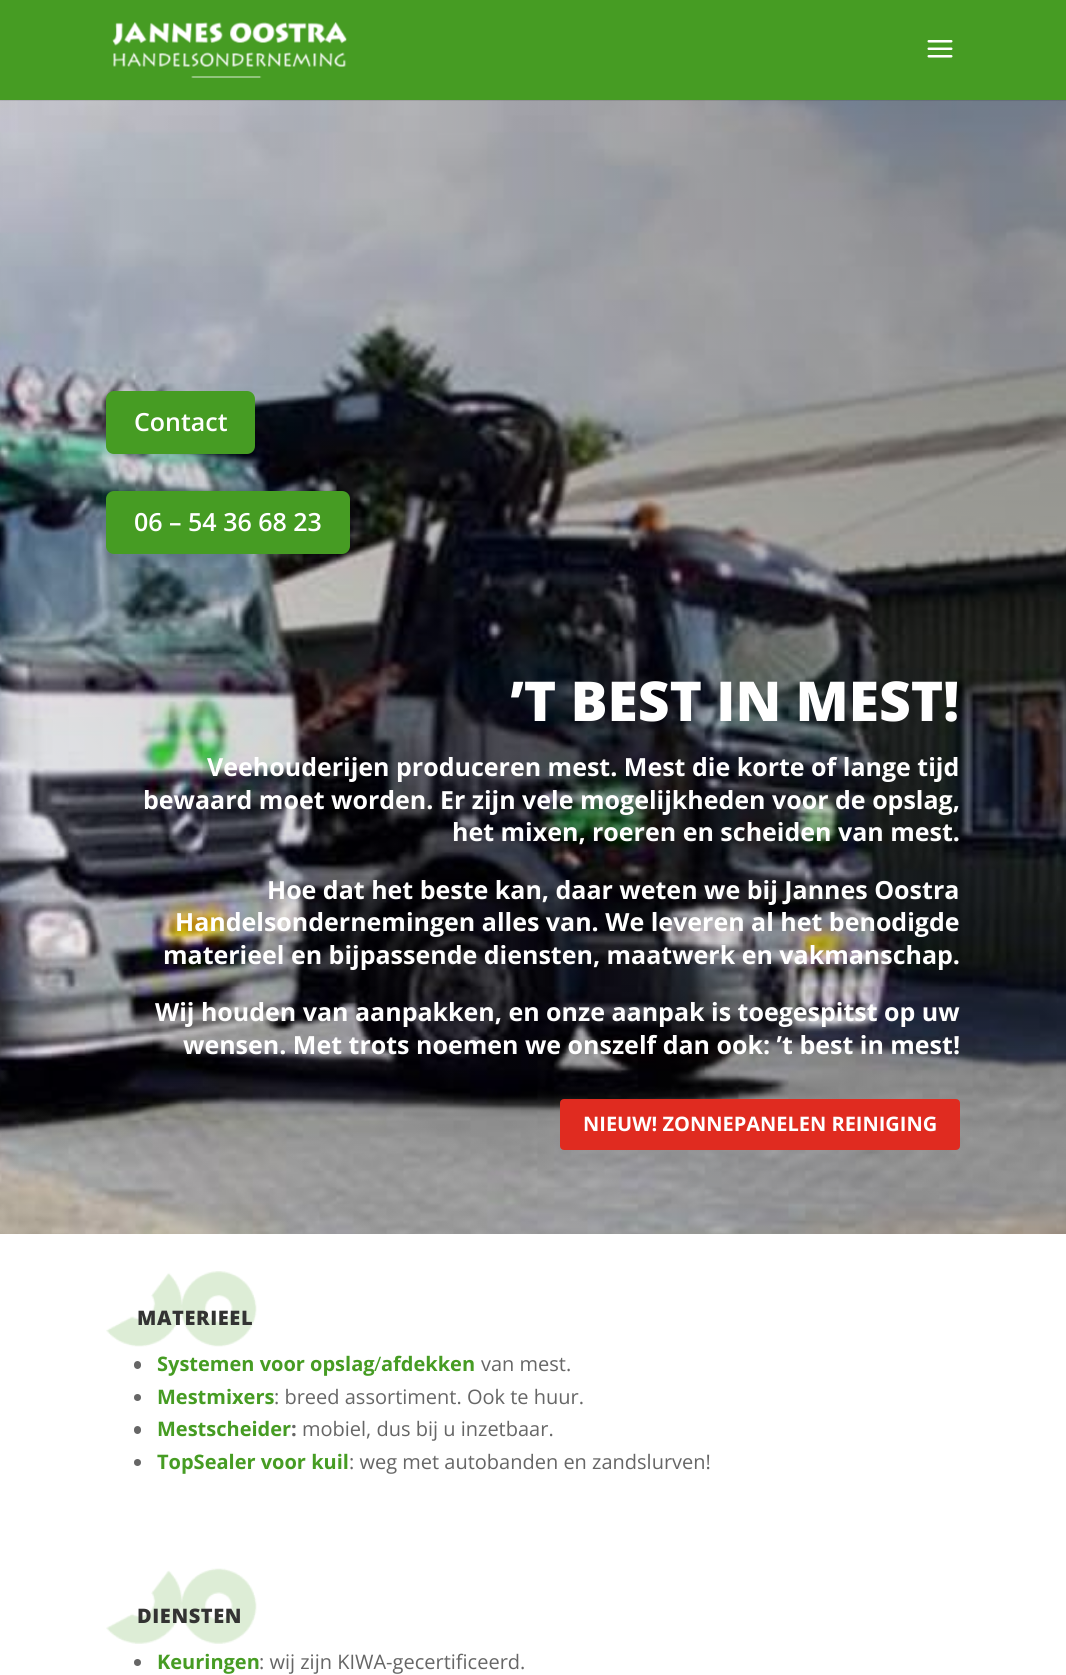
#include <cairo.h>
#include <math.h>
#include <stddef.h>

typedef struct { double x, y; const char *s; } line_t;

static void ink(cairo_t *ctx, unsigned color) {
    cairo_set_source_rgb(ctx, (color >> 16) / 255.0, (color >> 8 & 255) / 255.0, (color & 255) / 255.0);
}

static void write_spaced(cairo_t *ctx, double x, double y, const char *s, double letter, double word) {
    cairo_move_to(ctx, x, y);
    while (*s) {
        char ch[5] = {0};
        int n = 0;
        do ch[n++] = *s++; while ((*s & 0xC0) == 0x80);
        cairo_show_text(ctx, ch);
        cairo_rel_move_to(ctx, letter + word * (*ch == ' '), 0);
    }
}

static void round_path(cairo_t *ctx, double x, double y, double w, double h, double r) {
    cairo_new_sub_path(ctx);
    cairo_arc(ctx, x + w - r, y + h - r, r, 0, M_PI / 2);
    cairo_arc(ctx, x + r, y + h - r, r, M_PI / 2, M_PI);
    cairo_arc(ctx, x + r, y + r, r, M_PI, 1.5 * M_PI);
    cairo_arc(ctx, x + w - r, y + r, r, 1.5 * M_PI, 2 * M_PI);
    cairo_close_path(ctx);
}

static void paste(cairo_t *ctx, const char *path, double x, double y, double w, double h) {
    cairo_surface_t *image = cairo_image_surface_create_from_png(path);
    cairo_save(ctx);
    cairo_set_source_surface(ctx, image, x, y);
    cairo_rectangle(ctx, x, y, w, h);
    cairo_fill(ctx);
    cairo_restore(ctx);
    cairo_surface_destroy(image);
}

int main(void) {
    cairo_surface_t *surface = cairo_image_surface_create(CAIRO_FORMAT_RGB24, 1066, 1675);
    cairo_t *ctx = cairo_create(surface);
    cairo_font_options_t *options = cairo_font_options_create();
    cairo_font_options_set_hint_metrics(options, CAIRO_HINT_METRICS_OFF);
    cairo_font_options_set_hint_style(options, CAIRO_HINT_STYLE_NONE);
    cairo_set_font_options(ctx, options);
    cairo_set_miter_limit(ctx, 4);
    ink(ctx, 0xFFFFFF);
    cairo_paint(ctx);
    paste(ctx, "media/3.png", 0, 100, 1066, 1134);
    cairo_set_source_rgba(ctx, 0, 0, 0, 0.1);
    cairo_rectangle(ctx, 0, 100, 1066, 1);
    cairo_fill(ctx);
    ink(ctx, 0x469C23);
    cairo_rectangle(ctx, 0, 0, 1066, 100);
    cairo_fill(ctx);
    paste(ctx, "media/1.png", 112, 22, 235, 56);
    paste(ctx, "media/2.png", 927, 40, 26, 18);
    round_path(ctx, 106, 391, 149, 63, 8);
    cairo_fill(ctx);
    cairo_select_font_face(ctx, "Open Sans SemiBold", CAIRO_FONT_SLANT_NORMAL, CAIRO_FONT_WEIGHT_NORMAL);
    cairo_set_font_size(ctx, 25);
    ink(ctx, 0xFFFFFF);
    cairo_move_to(ctx, 134, 431);
    cairo_show_text(ctx, "Contact");
    ink(ctx, 0x469C23);
    round_path(ctx, 106, 491, 244, 63, 8);
    cairo_fill(ctx);
    ink(ctx, 0xFFFFFF);
    cairo_move_to(ctx, 134, 531);
    cairo_show_text(ctx, "06 – 54 36 68 23");
    cairo_select_font_face(ctx, "Open Sans ExtraBold", CAIRO_FONT_SLANT_NORMAL, CAIRO_FONT_WEIGHT_NORMAL);
    cairo_set_font_size(ctx, 55);
    cairo_move_to(ctx, 510, 721);
    cairo_show_text(ctx, "’T BEST IN MEST!");
    cairo_select_font_face(ctx, "Open Sans", CAIRO_FONT_SLANT_NORMAL, CAIRO_FONT_WEIGHT_BOLD);
    cairo_set_font_size(ctx, 25);
    {
        static const line_t items[] = {
            {207, 776, "Veehouderijen produceren mest. Mest die korte of lange tijd"},
            {143, 809, "bewaard moet worden. Er zijn vele mogelijkheden voor de opslag,"},
            {452, 841, "het mixen, roeren en scheiden van mest."},
            {267, 899, "Hoe dat het beste kan, daar weten we bij Jannes Oostra"},
            {175, 931, "Handelsondernemingen alles van. We leveren al het benodigde"},
            {163, 964, "materieel en bijpassende diensten, maatwerk en vakmanschap."},
            {155, 1021, "Wij houden van aanpakken, en onze aanpak is toegespitst op uw"},
            {183, 1054, "wensen. Met trots noemen we onszelf dan ook: ’t best in mest!"},
        };
        for (size_t i = 0; i < sizeof items / sizeof *items; i++) {
            cairo_move_to(ctx, items[i].x, items[i].y);
            cairo_show_text(ctx, items[i].s);
        }
    }
    ink(ctx, 0xE02B20);
    round_path(ctx, 561.5, 1100.5, 397, 48, 2.5);
    cairo_fill_preserve(ctx);
    cairo_set_line_width(ctx, 3);
    cairo_stroke(ctx);
    cairo_set_font_size(ctx, 20);
    ink(ctx, 0xFFFFFF);
    cairo_move_to(ctx, 583, 1131);
    cairo_show_text(ctx, "NIEUW! ZONNEPANELEN REINIGING");
    paste(ctx, "media/4.png", 106, 1271, 151, 76);
    cairo_select_font_face(ctx, "Open Sans ExtraBold", CAIRO_FONT_SLANT_NORMAL, CAIRO_FONT_WEIGHT_NORMAL);
    ink(ctx, 0x333333);
    write_spaced(ctx, 137, 1325, "MATERIEEL", 0.6, 0);
    ink(ctx, 0x666666);
    round_path(ctx, 134, 1361, 7, 8, 3.5);
    cairo_fill(ctx);
    cairo_select_font_face(ctx, "Open Sans", CAIRO_FONT_SLANT_NORMAL, CAIRO_FONT_WEIGHT_BOLD);
    ink(ctx, 0x469C23);
    cairo_move_to(ctx, 157, 1371);
    cairo_show_text(ctx, "Systemen voor opslag");
    cairo_select_font_face(ctx, "Open Sans", CAIRO_FONT_SLANT_NORMAL, CAIRO_FONT_WEIGHT_NORMAL);
    cairo_move_to(ctx, 374, 1371);
    cairo_show_text(ctx, "/");
    cairo_select_font_face(ctx, "Open Sans", CAIRO_FONT_SLANT_NORMAL, CAIRO_FONT_WEIGHT_BOLD);
    cairo_move_to(ctx, 381, 1371);
    cairo_show_text(ctx, "afdekken");
    cairo_select_font_face(ctx, "Open Sans", CAIRO_FONT_SLANT_NORMAL, CAIRO_FONT_WEIGHT_NORMAL);
    ink(ctx, 0x666666);
    cairo_move_to(ctx, 481, 1371);
    cairo_show_text(ctx, "van mest.");
    cairo_new_path(ctx);
    cairo_arc(ctx, 137.5, 1397.5, 3.5, 0, 2 * M_PI);
    cairo_fill(ctx);
    cairo_select_font_face(ctx, "Open Sans", CAIRO_FONT_SLANT_NORMAL, CAIRO_FONT_WEIGHT_BOLD);
    ink(ctx, 0x469C23);
    cairo_move_to(ctx, 157, 1404);
    cairo_show_text(ctx, "Mestmixers");
    cairo_select_font_face(ctx, "Open Sans", CAIRO_FONT_SLANT_NORMAL, CAIRO_FONT_WEIGHT_NORMAL);
    ink(ctx, 0x666666);
    cairo_move_to(ctx, 274, 1404);
    cairo_show_text(ctx, ": breed assortiment. Ook te huur.");
    round_path(ctx, 134, 1426, 7, 8, 3.5);
    cairo_fill(ctx);
    cairo_select_font_face(ctx, "Open Sans", CAIRO_FONT_SLANT_NORMAL, CAIRO_FONT_WEIGHT_BOLD);
    ink(ctx, 0x469C23);
    cairo_move_to(ctx, 157, 1436);
    cairo_show_text(ctx, "Mestscheider");
    ink(ctx, 0x666666);
    cairo_move_to(ctx, 291, 1436);
    cairo_show_text(ctx, ":");
    cairo_select_font_face(ctx, "Open Sans", CAIRO_FONT_SLANT_NORMAL, CAIRO_FONT_WEIGHT_NORMAL);
    cairo_move_to(ctx, 302, 1436);
    cairo_show_text(ctx, "mobiel, dus bij u inzetbaar.");
    cairo_new_path(ctx);
    cairo_arc(ctx, 137.5, 1462.5, 3.5, 0, 2 * M_PI);
    cairo_fill(ctx);
    cairo_select_font_face(ctx, "Open Sans", CAIRO_FONT_SLANT_NORMAL, CAIRO_FONT_WEIGHT_BOLD);
    ink(ctx, 0x469C23);
    cairo_move_to(ctx, 157, 1469);
    cairo_show_text(ctx, "TopSealer voor kuil");
    cairo_select_font_face(ctx, "Open Sans", CAIRO_FONT_SLANT_NORMAL, CAIRO_FONT_WEIGHT_NORMAL);
    ink(ctx, 0x666666);
    cairo_move_to(ctx, 349, 1469);
    cairo_show_text(ctx, ": weg met autobanden en zandslurven!");
    paste(ctx, "media/5.png", 106, 1568, 151, 76);
    cairo_select_font_face(ctx, "Open Sans ExtraBold", CAIRO_FONT_SLANT_NORMAL, CAIRO_FONT_WEIGHT_NORMAL);
    ink(ctx, 0x333333);
    write_spaced(ctx, 137, 1623, "DIENSTEN", 0.6, 0);
    ink(ctx, 0x666666);
    cairo_new_path(ctx);
    cairo_arc(ctx, 137.5, 1662.5, 3.5, 0, 2 * M_PI);
    cairo_fill(ctx);
    cairo_select_font_face(ctx, "Open Sans", CAIRO_FONT_SLANT_NORMAL, CAIRO_FONT_WEIGHT_BOLD);
    ink(ctx, 0x469C23);
    cairo_move_to(ctx, 157, 1669);
    cairo_show_text(ctx, "Keuringen");
    cairo_select_font_face(ctx, "Open Sans", CAIRO_FONT_SLANT_NORMAL, CAIRO_FONT_WEIGHT_NORMAL);
    ink(ctx, 0x666666);
    cairo_move_to(ctx, 259, 1669);
    cairo_show_text(ctx, ": wij zijn KIWA-gecertificeerd.");
    cairo_surface_write_to_png(surface, "image.png");
    cairo_font_options_destroy(options);
    cairo_destroy(ctx);
    cairo_surface_destroy(surface);
    return 0;
}
